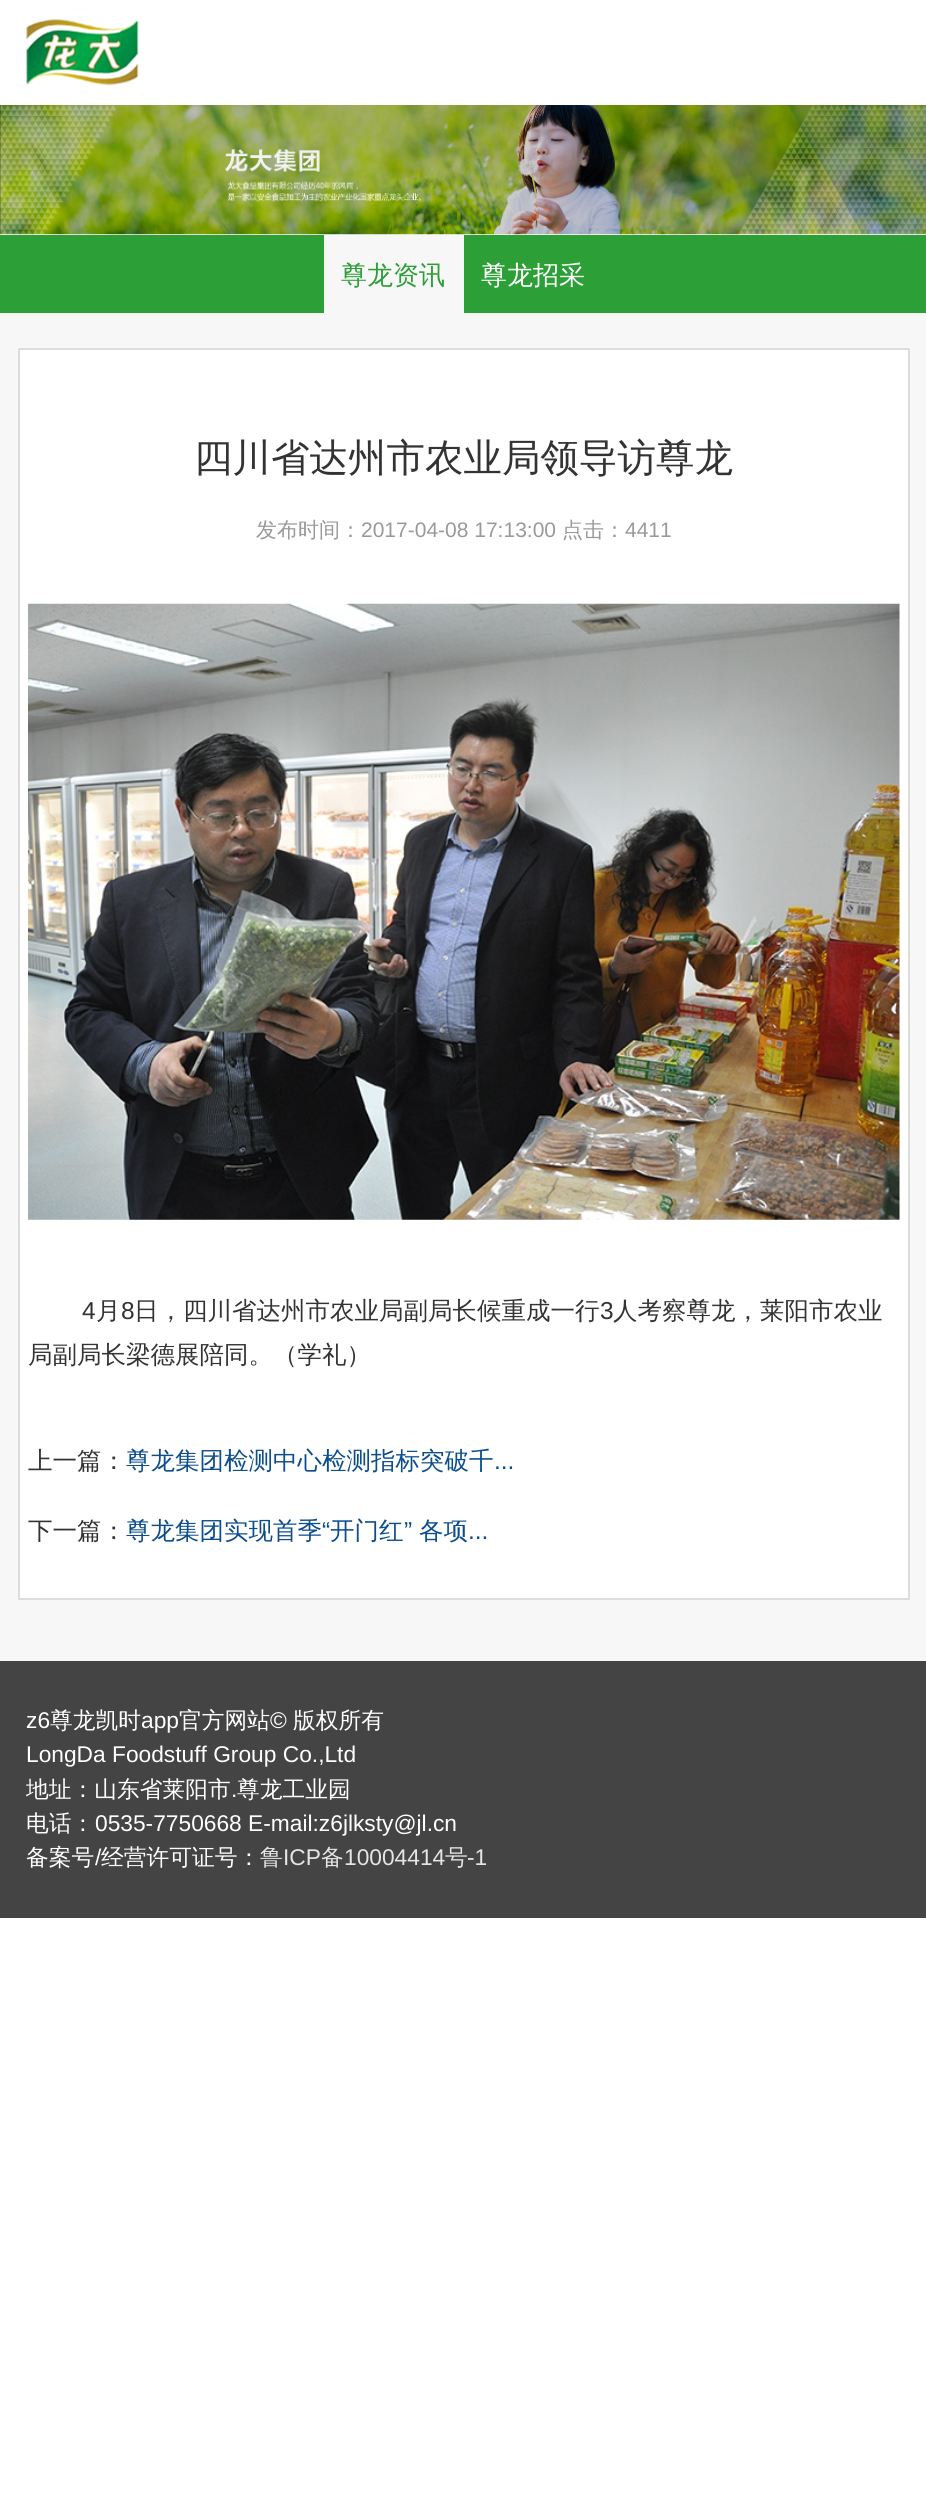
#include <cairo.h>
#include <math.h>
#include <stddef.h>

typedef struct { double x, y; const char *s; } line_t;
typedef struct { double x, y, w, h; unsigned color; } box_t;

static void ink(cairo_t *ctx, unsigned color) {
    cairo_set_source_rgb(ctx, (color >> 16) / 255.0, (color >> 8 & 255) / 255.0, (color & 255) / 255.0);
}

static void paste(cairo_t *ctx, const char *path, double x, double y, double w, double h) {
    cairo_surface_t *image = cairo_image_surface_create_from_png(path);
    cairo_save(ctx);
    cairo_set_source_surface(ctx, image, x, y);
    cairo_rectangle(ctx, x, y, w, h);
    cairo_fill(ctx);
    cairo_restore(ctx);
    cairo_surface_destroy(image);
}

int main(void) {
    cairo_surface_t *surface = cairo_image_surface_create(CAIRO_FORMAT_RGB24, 926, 2498);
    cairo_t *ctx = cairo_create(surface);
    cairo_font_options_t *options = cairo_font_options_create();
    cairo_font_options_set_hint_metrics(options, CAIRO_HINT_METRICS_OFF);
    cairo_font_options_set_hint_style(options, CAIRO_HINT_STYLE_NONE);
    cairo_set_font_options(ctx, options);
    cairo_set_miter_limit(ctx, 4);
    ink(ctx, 0xFFFFFF);
    cairo_paint(ctx);
    paste(ctx, "media/1.png", 26, 19, 113, 67);
    paste(ctx, "media/2.png", 0, 105, 926, 130);
    {
        static const box_t items[] = {
            {0, 313, 926, 1348, 0xF7F7F7},
            {0, 235, 926, 78, 0x2C9F37},
            {324, 235, 140, 78, 0xF7F7F7},
        };
        for (size_t i = 0; i < sizeof items / sizeof *items; i++) {
            ink(ctx, items[i].color);
            cairo_rectangle(ctx, items[i].x, items[i].y, items[i].w, items[i].h);
            cairo_fill(ctx);
        }
    }
    cairo_select_font_face(ctx, "WenQuanYi Zen Hei Medium", CAIRO_FONT_SLANT_NORMAL, CAIRO_FONT_WEIGHT_NORMAL);
    cairo_set_font_size(ctx, 26);
    ink(ctx, 0x2C9F37);
    cairo_move_to(ctx, 341, 284);
    cairo_show_text(ctx, "尊龙资讯");
    ink(ctx, 0xFFFFFF);
    cairo_move_to(ctx, 481, 284);
    cairo_show_text(ctx, "尊龙招采");
    cairo_rectangle(ctx, 19, 349, 890, 1250);
    cairo_fill_preserve(ctx);
    ink(ctx, 0xDDDDDD);
    cairo_stroke(ctx);
    cairo_set_font_size(ctx, 38.5);
    ink(ctx, 0x333333);
    cairo_move_to(ctx, 194, 471);
    cairo_show_text(ctx, "四川省达州市农业局领导访尊龙");
    cairo_set_font_size(ctx, 21);
    ink(ctx, 0x999999);
    cairo_move_to(ctx, 256, 537);
    cairo_show_text(ctx, "发布时间：");
    cairo_select_font_face(ctx, "Liberation Sans", CAIRO_FONT_SLANT_NORMAL, CAIRO_FONT_WEIGHT_NORMAL);
    cairo_move_to(ctx, 361, 537);
    cairo_show_text(ctx, "2017-04-08 17:13:00");
    cairo_select_font_face(ctx, "WenQuanYi Zen Hei Medium", CAIRO_FONT_SLANT_NORMAL, CAIRO_FONT_WEIGHT_NORMAL);
    cairo_move_to(ctx, 562, 537);
    cairo_show_text(ctx, "点击：");
    cairo_select_font_face(ctx, "Liberation Sans", CAIRO_FONT_SLANT_NORMAL, CAIRO_FONT_WEIGHT_NORMAL);
    cairo_move_to(ctx, 625, 537);
    cairo_show_text(ctx, "4411");
    paste(ctx, "media/3.png", 28, 603, 872, 617);
    cairo_set_font_size(ctx, 24.5);
    ink(ctx, 0x333333);
    cairo_move_to(ctx, 82, 1319);
    cairo_show_text(ctx, "4");
    cairo_select_font_face(ctx, "WenQuanYi Zen Hei Medium", CAIRO_FONT_SLANT_NORMAL, CAIRO_FONT_WEIGHT_NORMAL);
    cairo_move_to(ctx, 96, 1319);
    cairo_show_text(ctx, "月");
    cairo_select_font_face(ctx, "Liberation Sans", CAIRO_FONT_SLANT_NORMAL, CAIRO_FONT_WEIGHT_NORMAL);
    cairo_move_to(ctx, 121, 1319);
    cairo_show_text(ctx, "8");
    cairo_select_font_face(ctx, "WenQuanYi Zen Hei Medium", CAIRO_FONT_SLANT_NORMAL, CAIRO_FONT_WEIGHT_NORMAL);
    cairo_move_to(ctx, 134, 1319);
    cairo_show_text(ctx, "日，四川省达州市农业局副局长候重成一行");
    cairo_select_font_face(ctx, "Liberation Sans", CAIRO_FONT_SLANT_NORMAL, CAIRO_FONT_WEIGHT_NORMAL);
    cairo_move_to(ctx, 600, 1319);
    cairo_show_text(ctx, "3");
    cairo_select_font_face(ctx, "WenQuanYi Zen Hei Medium", CAIRO_FONT_SLANT_NORMAL, CAIRO_FONT_WEIGHT_NORMAL);
    {
        static const line_t items[] = {
            {613, 1319, "人考察尊龙，莱阳市农业"},
            {28, 1363, "局副局长梁德展陪同。（学礼）"},
            {28, 1469, "上一篇："},
        };
        for (size_t i = 0; i < sizeof items / sizeof *items; i++) {
            cairo_move_to(ctx, items[i].x, items[i].y);
            cairo_show_text(ctx, items[i].s);
        }
    }
    ink(ctx, 0x0C4D8D);
    cairo_move_to(ctx, 126, 1469);
    cairo_show_text(ctx, "尊龙集团检测中心检测指标突破千");
    cairo_select_font_face(ctx, "Liberation Sans", CAIRO_FONT_SLANT_NORMAL, CAIRO_FONT_WEIGHT_NORMAL);
    cairo_move_to(ctx, 494, 1469);
    cairo_show_text(ctx, "...");
    cairo_select_font_face(ctx, "WenQuanYi Zen Hei Medium", CAIRO_FONT_SLANT_NORMAL, CAIRO_FONT_WEIGHT_NORMAL);
    ink(ctx, 0x333333);
    cairo_move_to(ctx, 28, 1539);
    cairo_show_text(ctx, "下一篇：");
    ink(ctx, 0x0C4D8D);
    cairo_move_to(ctx, 126, 1539);
    cairo_show_text(ctx, "尊龙集团实现首季");
    cairo_select_font_face(ctx, "Liberation Sans", CAIRO_FONT_SLANT_NORMAL, CAIRO_FONT_WEIGHT_NORMAL);
    cairo_move_to(ctx, 322, 1539);
    cairo_show_text(ctx, "“");
    cairo_select_font_face(ctx, "WenQuanYi Zen Hei Medium", CAIRO_FONT_SLANT_NORMAL, CAIRO_FONT_WEIGHT_NORMAL);
    cairo_move_to(ctx, 330, 1539);
    cairo_show_text(ctx, "开门红");
    cairo_select_font_face(ctx, "Liberation Sans", CAIRO_FONT_SLANT_NORMAL, CAIRO_FONT_WEIGHT_NORMAL);
    cairo_move_to(ctx, 404, 1539);
    cairo_show_text(ctx, "”");
    cairo_select_font_face(ctx, "WenQuanYi Zen Hei Medium", CAIRO_FONT_SLANT_NORMAL, CAIRO_FONT_WEIGHT_NORMAL);
    cairo_move_to(ctx, 419, 1539);
    cairo_show_text(ctx, "各项");
    cairo_select_font_face(ctx, "Liberation Sans", CAIRO_FONT_SLANT_NORMAL, CAIRO_FONT_WEIGHT_NORMAL);
    cairo_move_to(ctx, 468, 1539);
    cairo_show_text(ctx, "...");
    ink(ctx, 0x444444);
    cairo_rectangle(ctx, 0, 1661, 926, 257);
    cairo_fill(ctx);
    cairo_set_font_size(ctx, 22.75);
    ink(ctx, 0xFFFFFF);
    cairo_move_to(ctx, 26, 1728);
    cairo_show_text(ctx, "z6");
    cairo_select_font_face(ctx, "WenQuanYi Zen Hei Medium", CAIRO_FONT_SLANT_NORMAL, CAIRO_FONT_WEIGHT_NORMAL);
    cairo_move_to(ctx, 50, 1728);
    cairo_show_text(ctx, "尊龙凯时");
    cairo_select_font_face(ctx, "Liberation Sans", CAIRO_FONT_SLANT_NORMAL, CAIRO_FONT_WEIGHT_NORMAL);
    cairo_move_to(ctx, 141, 1728);
    cairo_show_text(ctx, "app");
    cairo_select_font_face(ctx, "WenQuanYi Zen Hei Medium", CAIRO_FONT_SLANT_NORMAL, CAIRO_FONT_WEIGHT_NORMAL);
    cairo_move_to(ctx, 179, 1728);
    cairo_show_text(ctx, "官方网站");
    cairo_select_font_face(ctx, "Liberation Sans", CAIRO_FONT_SLANT_NORMAL, CAIRO_FONT_WEIGHT_NORMAL);
    cairo_move_to(ctx, 270, 1728);
    cairo_show_text(ctx, "©");
    cairo_select_font_face(ctx, "WenQuanYi Zen Hei Medium", CAIRO_FONT_SLANT_NORMAL, CAIRO_FONT_WEIGHT_NORMAL);
    cairo_move_to(ctx, 293, 1728);
    cairo_show_text(ctx, "版权所有");
    cairo_select_font_face(ctx, "Liberation Sans", CAIRO_FONT_SLANT_NORMAL, CAIRO_FONT_WEIGHT_NORMAL);
    cairo_move_to(ctx, 26, 1762);
    cairo_show_text(ctx, "LongDa Foodstuff Group Co.,Ltd");
    cairo_select_font_face(ctx, "WenQuanYi Zen Hei Medium", CAIRO_FONT_SLANT_NORMAL, CAIRO_FONT_WEIGHT_NORMAL);
    cairo_move_to(ctx, 26, 1797);
    cairo_show_text(ctx, "地址：山东省莱阳市");
    cairo_select_font_face(ctx, "Liberation Sans", CAIRO_FONT_SLANT_NORMAL, CAIRO_FONT_WEIGHT_NORMAL);
    cairo_move_to(ctx, 231, 1797);
    cairo_show_text(ctx, ".");
    cairo_select_font_face(ctx, "WenQuanYi Zen Hei Medium", CAIRO_FONT_SLANT_NORMAL, CAIRO_FONT_WEIGHT_NORMAL);
    cairo_move_to(ctx, 237, 1797);
    cairo_show_text(ctx, "尊龙工业园");
    cairo_move_to(ctx, 26, 1831);
    cairo_show_text(ctx, "电话：");
    cairo_select_font_face(ctx, "Liberation Sans", CAIRO_FONT_SLANT_NORMAL, CAIRO_FONT_WEIGHT_NORMAL);
    cairo_move_to(ctx, 95, 1831);
    cairo_show_text(ctx, "0535-7750668 E-mail:z6jlksty@jl.cn");
    cairo_select_font_face(ctx, "WenQuanYi Zen Hei Medium", CAIRO_FONT_SLANT_NORMAL, CAIRO_FONT_WEIGHT_NORMAL);
    cairo_move_to(ctx, 26, 1865);
    cairo_show_text(ctx, "备案号");
    cairo_select_font_face(ctx, "Liberation Sans", CAIRO_FONT_SLANT_NORMAL, CAIRO_FONT_WEIGHT_NORMAL);
    cairo_move_to(ctx, 95, 1865);
    cairo_show_text(ctx, "/");
    cairo_select_font_face(ctx, "WenQuanYi Zen Hei Medium", CAIRO_FONT_SLANT_NORMAL, CAIRO_FONT_WEIGHT_NORMAL);
    cairo_move_to(ctx, 101, 1865);
    cairo_show_text(ctx, "经营许可证号：");
    ink(ctx, 0xE5E5E5);
    cairo_move_to(ctx, 260, 1865);
    cairo_show_text(ctx, "鲁");
    cairo_select_font_face(ctx, "Liberation Sans", CAIRO_FONT_SLANT_NORMAL, CAIRO_FONT_WEIGHT_NORMAL);
    cairo_move_to(ctx, 283, 1865);
    cairo_show_text(ctx, "ICP");
    cairo_select_font_face(ctx, "WenQuanYi Zen Hei Medium", CAIRO_FONT_SLANT_NORMAL, CAIRO_FONT_WEIGHT_NORMAL);
    cairo_move_to(ctx, 321, 1865);
    cairo_show_text(ctx, "备");
    cairo_select_font_face(ctx, "Liberation Sans", CAIRO_FONT_SLANT_NORMAL, CAIRO_FONT_WEIGHT_NORMAL);
    cairo_move_to(ctx, 344, 1865);
    cairo_show_text(ctx, "10004414");
    cairo_select_font_face(ctx, "WenQuanYi Zen Hei Medium", CAIRO_FONT_SLANT_NORMAL, CAIRO_FONT_WEIGHT_NORMAL);
    cairo_move_to(ctx, 445, 1865);
    cairo_show_text(ctx, "号");
    cairo_select_font_face(ctx, "Liberation Sans", CAIRO_FONT_SLANT_NORMAL, CAIRO_FONT_WEIGHT_NORMAL);
    cairo_move_to(ctx, 467, 1865);
    cairo_show_text(ctx, "-1");
    cairo_surface_write_to_png(surface, "image.png");
    cairo_font_options_destroy(options);
    cairo_destroy(ctx);
    cairo_surface_destroy(surface);
    return 0;
}
